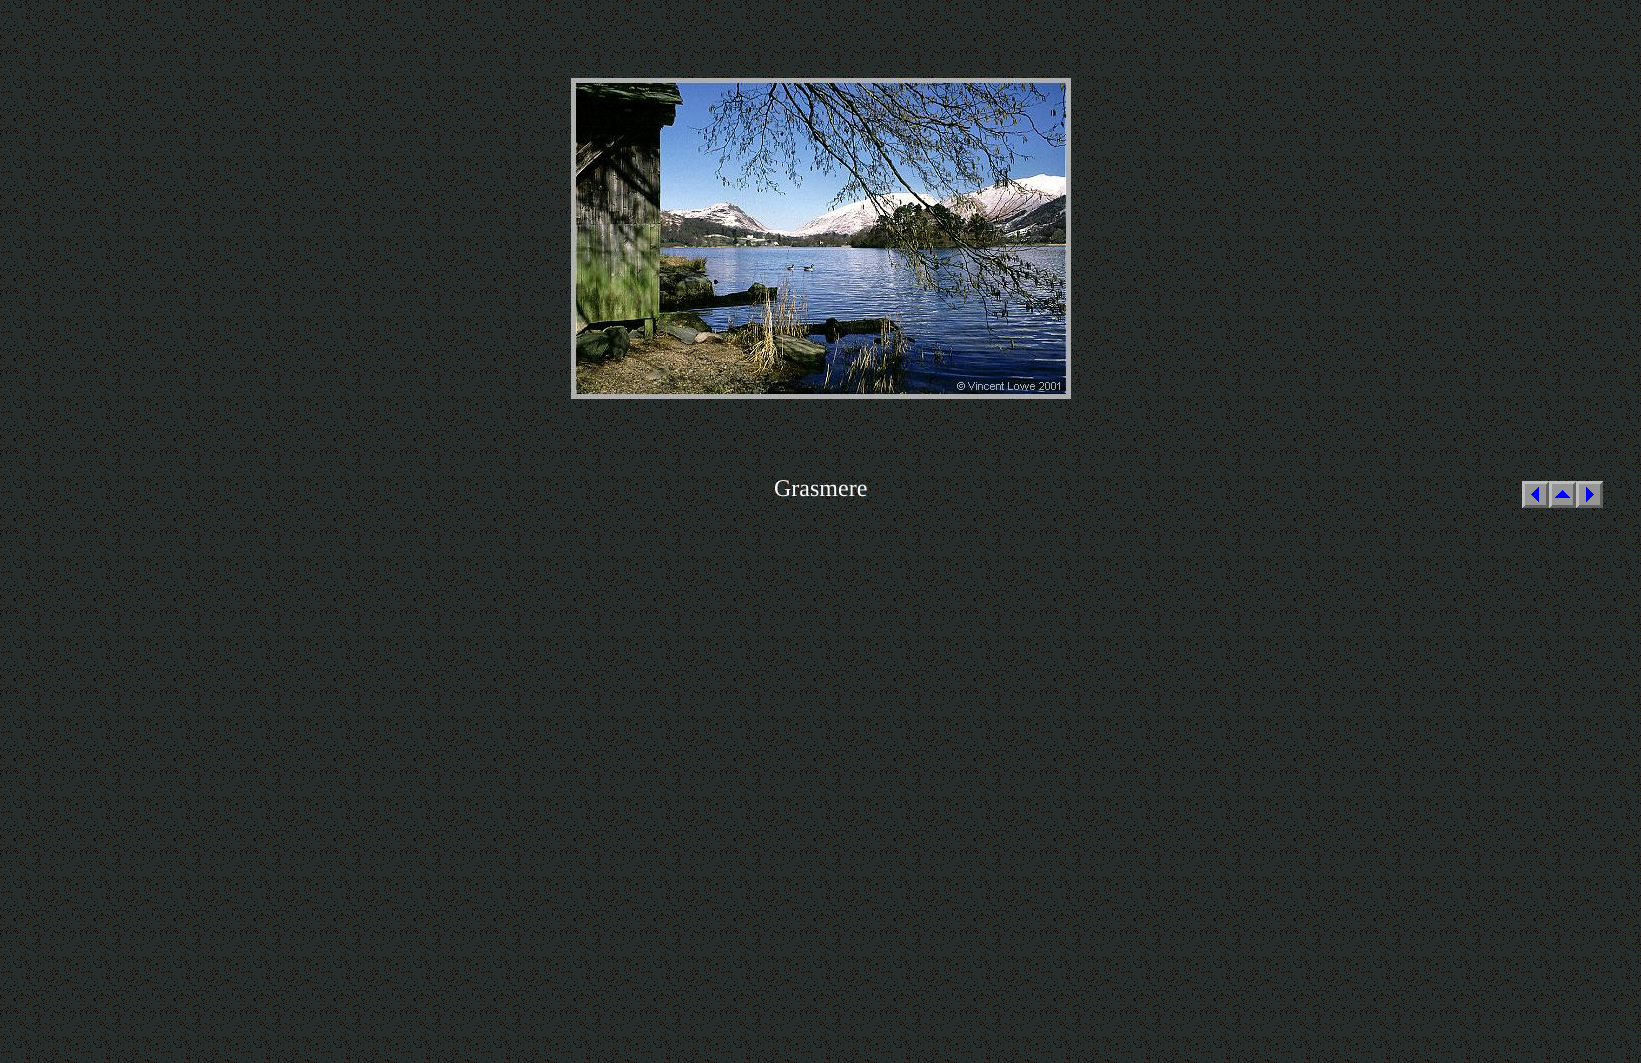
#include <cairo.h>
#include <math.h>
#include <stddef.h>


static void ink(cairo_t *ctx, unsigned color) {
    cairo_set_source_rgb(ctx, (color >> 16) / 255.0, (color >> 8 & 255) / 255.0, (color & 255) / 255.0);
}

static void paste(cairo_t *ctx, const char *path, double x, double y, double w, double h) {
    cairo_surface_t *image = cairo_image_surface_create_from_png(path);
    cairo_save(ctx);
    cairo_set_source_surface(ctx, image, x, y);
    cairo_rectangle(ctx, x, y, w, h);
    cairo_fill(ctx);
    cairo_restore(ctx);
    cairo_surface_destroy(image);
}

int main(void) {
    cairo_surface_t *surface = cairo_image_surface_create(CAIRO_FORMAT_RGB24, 1641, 1063);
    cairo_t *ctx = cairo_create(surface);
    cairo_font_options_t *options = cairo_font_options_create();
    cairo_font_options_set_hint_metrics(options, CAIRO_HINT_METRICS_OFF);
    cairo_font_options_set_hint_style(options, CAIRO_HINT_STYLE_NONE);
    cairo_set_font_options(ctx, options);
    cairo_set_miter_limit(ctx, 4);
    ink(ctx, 0xFFFFFF);
    cairo_paint(ctx);
    paste(ctx, "media/1.png", 0, 0, 1641, 1063);
    paste(ctx, "media/2.png", 571, 78, 500, 321);
    cairo_select_font_face(ctx, "Liberation Serif", CAIRO_FONT_SLANT_NORMAL, CAIRO_FONT_WEIGHT_NORMAL);
    cairo_set_font_size(ctx, 24);
    ink(ctx, 0xFFFFFF);
    cairo_move_to(ctx, 774, 496);
    cairo_show_text(ctx, "Grasmere");
    paste(ctx, "media/3.png", 1522, 481, 81, 27);
    cairo_surface_write_to_png(surface, "image.png");
    cairo_font_options_destroy(options);
    cairo_destroy(ctx);
    cairo_surface_destroy(surface);
    return 0;
}
